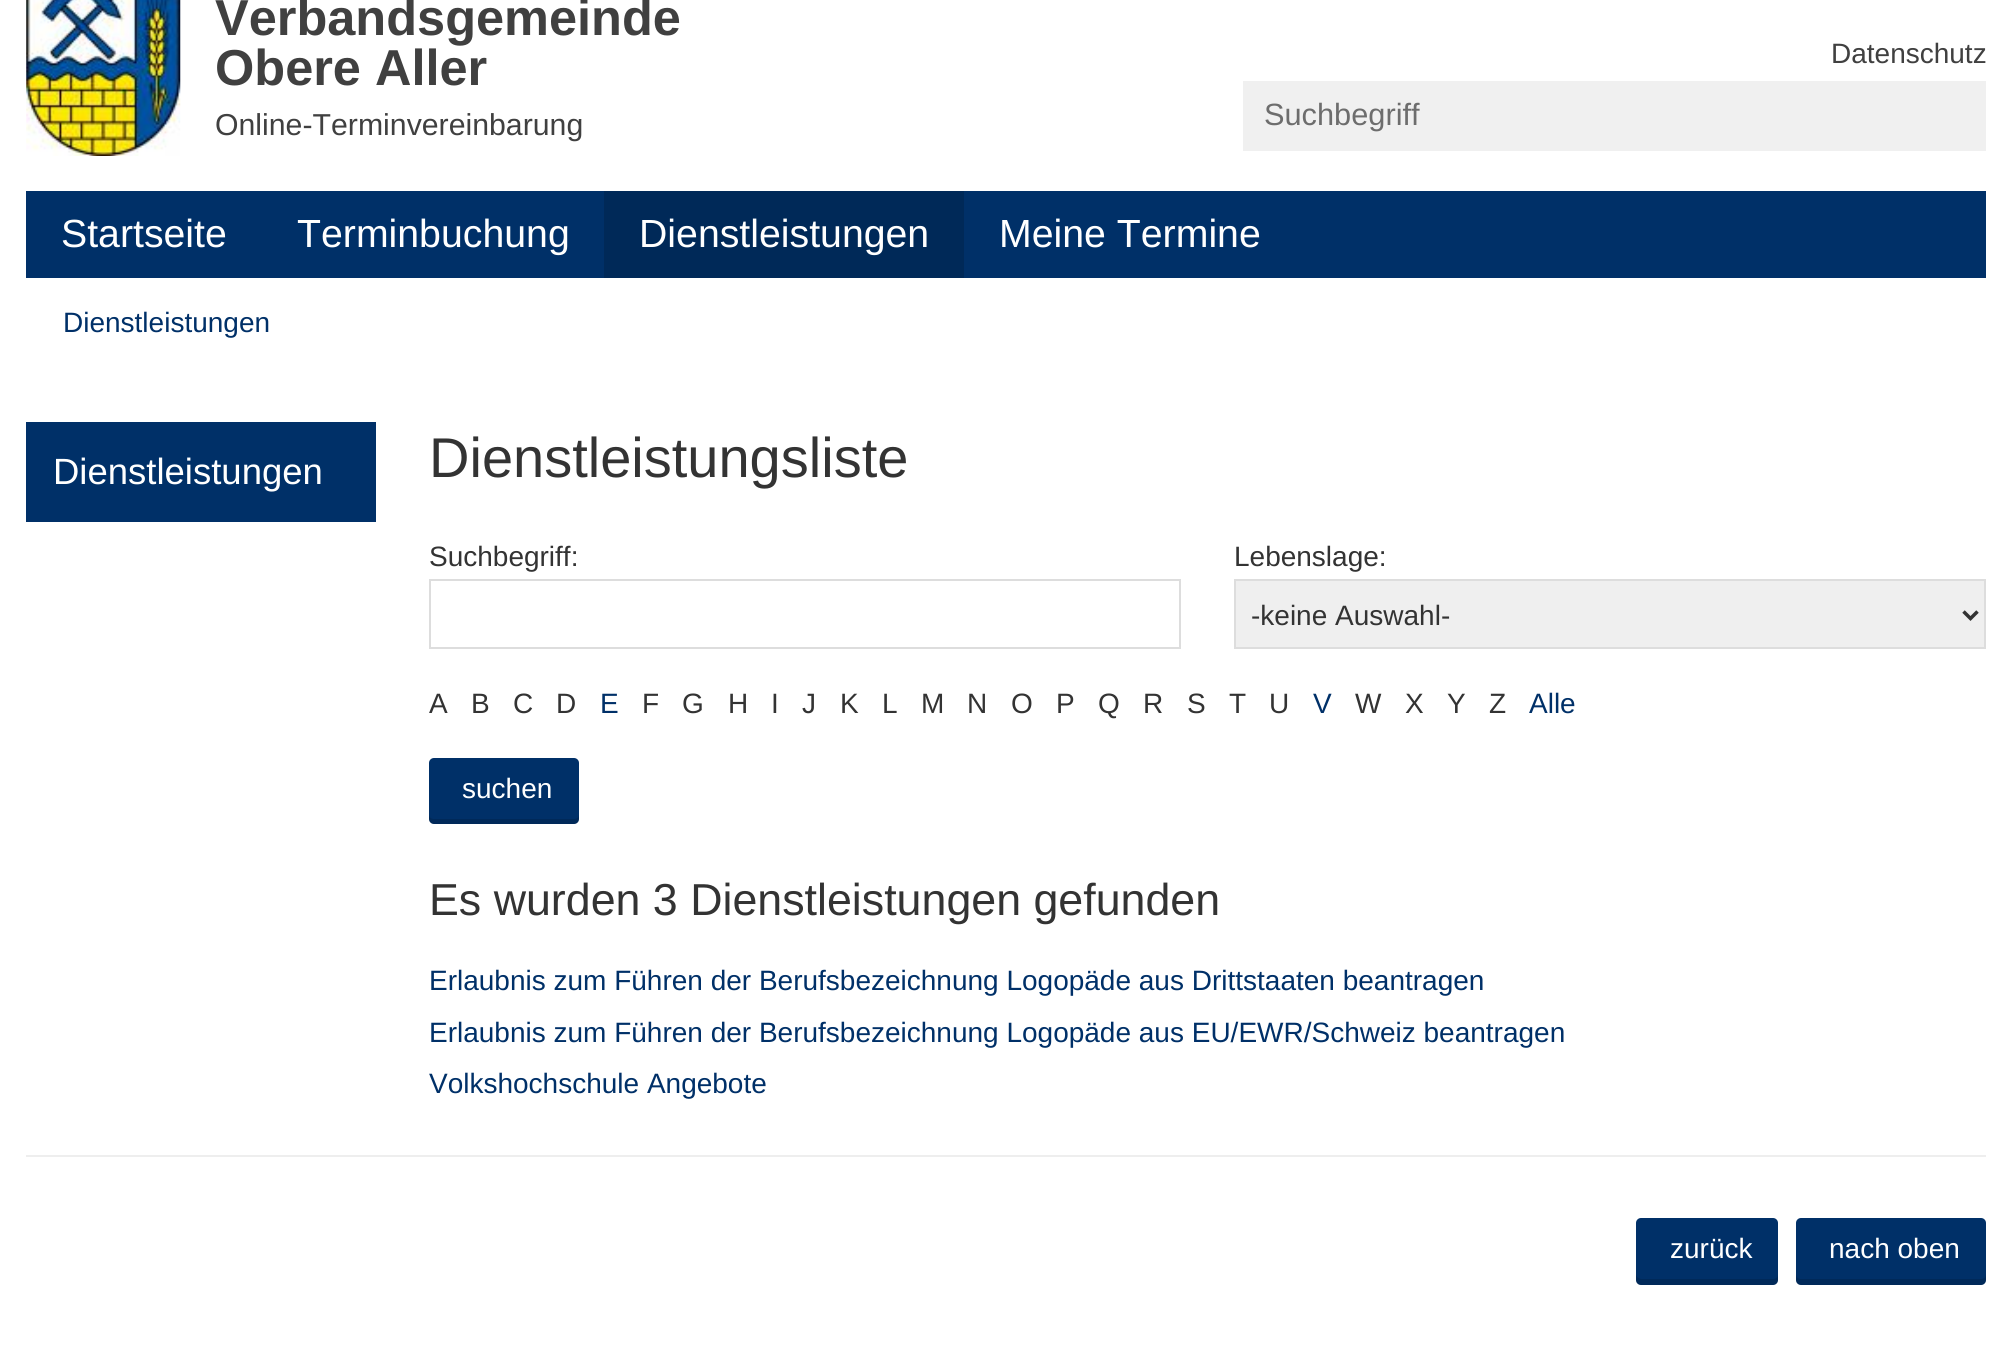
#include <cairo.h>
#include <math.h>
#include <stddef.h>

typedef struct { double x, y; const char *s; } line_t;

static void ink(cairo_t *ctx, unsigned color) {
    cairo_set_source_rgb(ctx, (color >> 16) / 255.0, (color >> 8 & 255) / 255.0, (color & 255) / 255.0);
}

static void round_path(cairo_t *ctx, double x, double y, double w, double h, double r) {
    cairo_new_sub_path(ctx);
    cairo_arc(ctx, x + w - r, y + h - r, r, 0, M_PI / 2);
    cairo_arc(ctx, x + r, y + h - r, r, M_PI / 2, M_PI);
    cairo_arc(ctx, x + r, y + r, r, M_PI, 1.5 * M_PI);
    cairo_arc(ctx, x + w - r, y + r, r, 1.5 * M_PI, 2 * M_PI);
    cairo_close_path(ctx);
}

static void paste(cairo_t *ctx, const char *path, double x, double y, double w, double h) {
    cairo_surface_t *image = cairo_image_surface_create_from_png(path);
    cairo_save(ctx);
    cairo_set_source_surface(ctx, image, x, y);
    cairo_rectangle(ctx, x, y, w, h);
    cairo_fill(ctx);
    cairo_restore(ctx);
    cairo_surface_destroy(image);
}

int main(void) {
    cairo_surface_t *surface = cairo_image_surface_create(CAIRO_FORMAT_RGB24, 2012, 1346);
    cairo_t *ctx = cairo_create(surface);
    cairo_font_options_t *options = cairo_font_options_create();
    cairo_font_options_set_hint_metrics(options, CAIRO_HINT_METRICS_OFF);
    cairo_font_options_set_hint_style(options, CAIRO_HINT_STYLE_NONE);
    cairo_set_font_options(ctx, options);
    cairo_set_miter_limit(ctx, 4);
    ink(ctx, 0xFFFFFF);
    cairo_paint(ctx);
    paste(ctx, "media/1.png", 26, 0, 155, 156);
    cairo_select_font_face(ctx, "Liberation Sans", CAIRO_FONT_SLANT_NORMAL, CAIRO_FONT_WEIGHT_BOLD);
    cairo_set_font_size(ctx, 50.5);
    ink(ctx, 0x404040);
    cairo_move_to(ctx, 215, 35);
    cairo_show_text(ctx, "Verbandsgemeinde");
    cairo_move_to(ctx, 215, 85);
    cairo_show_text(ctx, "Obere Aller");
    cairo_select_font_face(ctx, "Liberation Sans", CAIRO_FONT_SLANT_NORMAL, CAIRO_FONT_WEIGHT_NORMAL);
    cairo_set_font_size(ctx, 30.25);
    cairo_move_to(ctx, 215, 135);
    cairo_show_text(ctx, "Online-Terminvereinbarung");
    cairo_set_font_size(ctx, 28);
    cairo_move_to(ctx, 1831, 63);
    cairo_show_text(ctx, "Datenschutz");
    ink(ctx, 0xF0F0F0);
    cairo_rectangle(ctx, 1243, 81, 743, 70);
    cairo_fill(ctx);
    cairo_set_font_size(ctx, 30.75);
    ink(ctx, 0x6D6D6D);
    cairo_move_to(ctx, 1264, 125);
    cairo_show_text(ctx, "Suchbegriff");
    ink(ctx, 0x003068);
    cairo_rectangle(ctx, 26, 191, 1960, 87);
    cairo_fill(ctx);
    cairo_set_font_size(ctx, 39.25);
    ink(ctx, 0xFFFFFF);
    cairo_move_to(ctx, 61, 247);
    cairo_show_text(ctx, "Startseite");
    cairo_move_to(ctx, 297, 247);
    cairo_show_text(ctx, "Terminbuchung");
    ink(ctx, 0x002958);
    cairo_rectangle(ctx, 604, 191, 360, 87);
    cairo_fill(ctx);
    ink(ctx, 0xFFFFFF);
    cairo_move_to(ctx, 639, 247);
    cairo_show_text(ctx, "Dienstleistungen");
    cairo_move_to(ctx, 999, 247);
    cairo_show_text(ctx, "Meine Termine");
    cairo_set_font_size(ctx, 28);
    ink(ctx, 0x003068);
    cairo_move_to(ctx, 63, 332);
    cairo_show_text(ctx, "Dienstleistungen");
    cairo_rectangle(ctx, 26, 422, 350, 100);
    cairo_fill(ctx);
    cairo_set_font_size(ctx, 36.5);
    ink(ctx, 0xFFFFFF);
    cairo_move_to(ctx, 53, 484);
    cairo_show_text(ctx, "Dienstleistungen");
    cairo_set_font_size(ctx, 56);
    ink(ctx, 0x333333);
    cairo_move_to(ctx, 429, 477);
    cairo_show_text(ctx, "Dienstleistungsliste");
    cairo_set_font_size(ctx, 28);
    cairo_move_to(ctx, 429, 566);
    cairo_show_text(ctx, "Suchbegriff:");
    cairo_rectangle(ctx, 430, 580, 750, 68);
    ink(ctx, 0xDDDDDD);
    cairo_stroke(ctx);
    ink(ctx, 0x333333);
    cairo_move_to(ctx, 1234, 566);
    cairo_show_text(ctx, "Lebenslage:");
    ink(ctx, 0xEFEFEF);
    cairo_rectangle(ctx, 1235, 580, 750, 68);
    cairo_fill_preserve(ctx);
    ink(ctx, 0xDDDDDD);
    cairo_stroke(ctx);
    cairo_new_path(ctx);
    cairo_move_to(ctx, 1963.5, 611.5);
    cairo_line_to(ctx, 1970.5, 618.5);
    cairo_line_to(ctx, 1977.5, 611.5);
    ink(ctx, 0x333333);
    cairo_set_line_width(ctx, 3.5);
    cairo_stroke(ctx);
    {
        static const line_t items[] = {
            {1251, 625, "-keine Auswahl-"},
            {429, 713, "A"},
            {471, 713, "B"},
            {513, 713, "C"},
            {556, 713, "D"},
        };
        for (size_t i = 0; i < sizeof items / sizeof *items; i++) {
            cairo_move_to(ctx, items[i].x, items[i].y);
            cairo_show_text(ctx, items[i].s);
        }
    }
    ink(ctx, 0x003068);
    cairo_move_to(ctx, 600, 713);
    cairo_show_text(ctx, "E");
    ink(ctx, 0x333333);
    {
        static const line_t items[] = {
            {642, 713, "F"},
            {682, 713, "G"},
            {728, 713, "H"},
            {771, 713, "I"},
            {802, 713, "J"},
            {840, 713, "K"},
            {882, 713, "L"},
            {921, 713, "M"},
            {967, 713, "N"},
            {1011, 713, "O"},
            {1056, 713, "P"},
            {1098, 713, "Q"},
            {1143, 713, "R"},
            {1187, 713, "S"},
            {1229, 713, "T"},
            {1269, 713, "U"},
        };
        for (size_t i = 0; i < sizeof items / sizeof *items; i++) {
            cairo_move_to(ctx, items[i].x, items[i].y);
            cairo_show_text(ctx, items[i].s);
        }
    }
    ink(ctx, 0x003068);
    cairo_move_to(ctx, 1313, 713);
    cairo_show_text(ctx, "V");
    ink(ctx, 0x333333);
    {
        static const line_t items[] = {
            {1355, 713, "W"},
            {1405, 713, "X"},
            {1447, 713, "Y"},
            {1489, 713, "Z"},
        };
        for (size_t i = 0; i < sizeof items / sizeof *items; i++) {
            cairo_move_to(ctx, items[i].x, items[i].y);
            cairo_show_text(ctx, items[i].s);
        }
    }
    ink(ctx, 0x003068);
    cairo_move_to(ctx, 1529, 713);
    cairo_show_text(ctx, "Alle");
    round_path(ctx, 429, 758, 150, 66, 5);
    cairo_fill(ctx);
    cairo_set_source_rgba(ctx, 0, 0, 0, 0.15);
    cairo_new_path(ctx);
    cairo_move_to(ctx, 429, 814);
    cairo_line_to(ctx, 429, 819);
    cairo_curve_to(ctx, 429, 822, 431, 824, 434, 824);
    cairo_line_to(ctx, 574, 824);
    cairo_curve_to(ctx, 577, 824, 579, 822, 579, 819);
    cairo_line_to(ctx, 579, 814);
    cairo_curve_to(ctx, 579, 817, 577, 819, 574, 819);
    cairo_line_to(ctx, 434, 819);
    cairo_curve_to(ctx, 431, 819, 429, 817, 429, 814);
    cairo_close_path(ctx);
    cairo_fill(ctx);
    ink(ctx, 0xFFFFFF);
    cairo_move_to(ctx, 462, 798);
    cairo_show_text(ctx, "suchen");
    cairo_set_font_size(ctx, 44.75);
    ink(ctx, 0x333333);
    cairo_move_to(ctx, 429, 915);
    cairo_show_text(ctx, "Es wurden 3 Dienstleistungen gefunden");
    cairo_set_font_size(ctx, 28);
    ink(ctx, 0x003068);
    {
        static const line_t items[] = {
            {429, 990, "Erlaubnis zum Führen der Berufsbezeichnung Logopäde aus Drittstaaten beantragen"},
            {429, 1042, "Erlaubnis zum Führen der Berufsbezeichnung Logopäde aus EU/EWR/Schweiz beantragen"},
            {429, 1093, "Volkshochschule Angebote"},
        };
        for (size_t i = 0; i < sizeof items / sizeof *items; i++) {
            cairo_move_to(ctx, items[i].x, items[i].y);
            cairo_show_text(ctx, items[i].s);
        }
    }
    ink(ctx, 0xEEEEEE);
    cairo_rectangle(ctx, 26, 1155, 1960, 2);
    cairo_fill(ctx);
    ink(ctx, 0x003068);
    round_path(ctx, 1636, 1218, 142, 67, 5);
    cairo_fill(ctx);
    cairo_set_source_rgba(ctx, 0, 0, 0, 0.15);
    cairo_new_path(ctx);
    cairo_move_to(ctx, 1636, 1274);
    cairo_line_to(ctx, 1636, 1280);
    cairo_curve_to(ctx, 1636, 1283, 1638, 1285, 1641, 1285);
    cairo_line_to(ctx, 1773, 1285);
    cairo_curve_to(ctx, 1776, 1285, 1778, 1283, 1778, 1280);
    cairo_line_to(ctx, 1778, 1274);
    cairo_curve_to(ctx, 1778, 1277, 1776, 1279, 1773, 1279);
    cairo_line_to(ctx, 1642, 1279);
    cairo_curve_to(ctx, 1639, 1279, 1636, 1277, 1636, 1274);
    cairo_close_path(ctx);
    cairo_fill(ctx);
    ink(ctx, 0xFFFFFF);
    cairo_move_to(ctx, 1670, 1258);
    cairo_show_text(ctx, "zurück");
    ink(ctx, 0x003068);
    round_path(ctx, 1796, 1218, 190, 67, 5);
    cairo_fill(ctx);
    cairo_set_source_rgba(ctx, 0, 0, 0, 0.15);
    cairo_new_path(ctx);
    cairo_move_to(ctx, 1796, 1274);
    cairo_line_to(ctx, 1796, 1280);
    cairo_curve_to(ctx, 1796, 1283, 1798, 1285, 1801, 1285);
    cairo_line_to(ctx, 1981, 1285);
    cairo_curve_to(ctx, 1984, 1285, 1986, 1283, 1986, 1280);
    cairo_line_to(ctx, 1986, 1274);
    cairo_curve_to(ctx, 1986, 1277, 1984, 1279, 1981, 1279);
    cairo_line_to(ctx, 1801, 1279);
    cairo_curve_to(ctx, 1798, 1279, 1796, 1277, 1796, 1274);
    cairo_close_path(ctx);
    cairo_fill(ctx);
    ink(ctx, 0xFFFFFF);
    cairo_move_to(ctx, 1829, 1258);
    cairo_show_text(ctx, "nach oben");
    cairo_surface_write_to_png(surface, "image.png");
    cairo_font_options_destroy(options);
    cairo_destroy(ctx);
    cairo_surface_destroy(surface);
    return 0;
}
